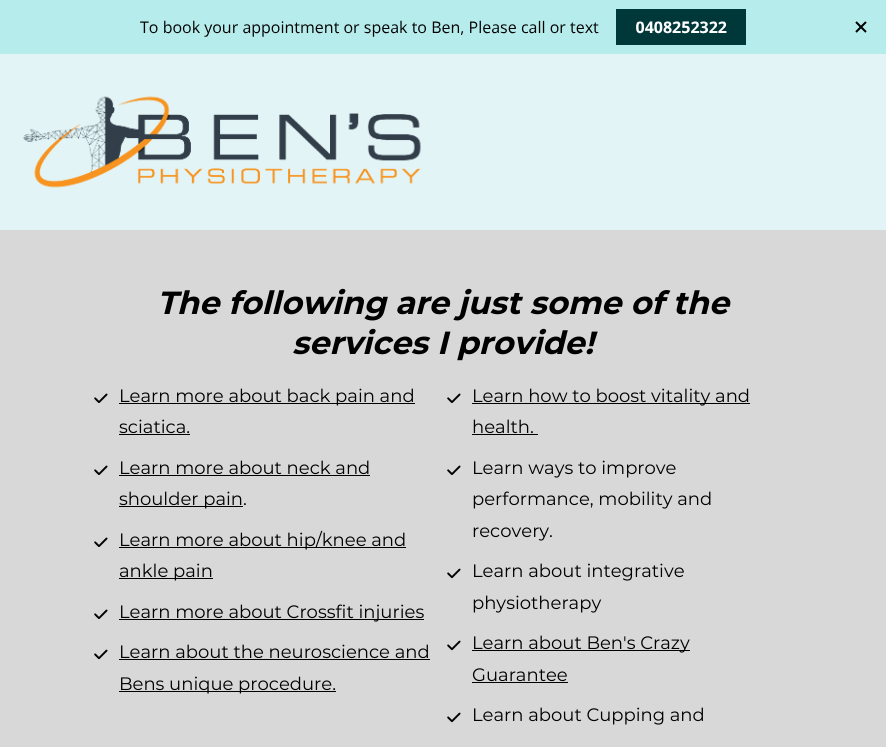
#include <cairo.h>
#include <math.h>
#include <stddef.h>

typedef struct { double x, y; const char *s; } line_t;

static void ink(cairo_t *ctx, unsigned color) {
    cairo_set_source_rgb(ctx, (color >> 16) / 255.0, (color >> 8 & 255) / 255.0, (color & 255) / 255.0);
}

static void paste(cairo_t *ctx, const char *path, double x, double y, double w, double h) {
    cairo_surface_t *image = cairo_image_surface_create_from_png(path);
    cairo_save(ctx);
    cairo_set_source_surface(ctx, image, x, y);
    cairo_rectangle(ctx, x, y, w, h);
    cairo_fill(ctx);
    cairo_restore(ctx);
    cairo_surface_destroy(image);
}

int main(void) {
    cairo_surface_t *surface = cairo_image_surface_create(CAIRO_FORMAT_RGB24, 886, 747);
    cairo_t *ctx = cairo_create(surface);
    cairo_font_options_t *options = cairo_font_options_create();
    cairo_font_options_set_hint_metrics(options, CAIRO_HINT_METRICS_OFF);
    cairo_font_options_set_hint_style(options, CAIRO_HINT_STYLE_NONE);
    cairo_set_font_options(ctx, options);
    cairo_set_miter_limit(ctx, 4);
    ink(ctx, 0xD8D8D8);
    cairo_paint(ctx);
    paste(ctx, "media/1.png", 0, 0, 886, 54);
    ink(ctx, 0xE2F4F5);
    cairo_rectangle(ctx, 0, 54, 886, 176);
    cairo_fill(ctx);
    paste(ctx, "media/2.png", 23, 96, 398, 92);
    cairo_select_font_face(ctx, "Montserrat", CAIRO_FONT_SLANT_ITALIC, CAIRO_FONT_WEIGHT_BOLD);
    cairo_set_font_size(ctx, 32);
    ink(ctx, 0x000000);
    cairo_move_to(ctx, 157, 314);
    cairo_show_text(ctx, "The following are just some of the");
    cairo_move_to(ctx, 292, 354);
    cairo_show_text(ctx, "services I provide!");
    paste(ctx, "media/3.png", 94, 393, 14, 10);
    cairo_rectangle(ctx, 119, 403, 296, 1);
    cairo_fill(ctx);
    cairo_select_font_face(ctx, "Montserrat", CAIRO_FONT_SLANT_NORMAL, CAIRO_FONT_WEIGHT_NORMAL);
    cairo_set_font_size(ctx, 18);
    cairo_move_to(ctx, 119, 402);
    cairo_show_text(ctx, "Learn more about back pain and");
    cairo_move_to(ctx, 119, 433);
    cairo_show_text(ctx, "sciatica.");
    cairo_rectangle(ctx, 119, 434, 71, 1);
    cairo_fill(ctx);
    paste(ctx, "media/3.png", 94, 465, 14, 10);
    cairo_move_to(ctx, 119, 474);
    cairo_show_text(ctx, "Learn more about neck and");
    cairo_rectangle(ctx, 119, 475, 251, 1);
    cairo_fill(ctx);
    cairo_rectangle(ctx, 119, 506, 124, 1);
    cairo_fill(ctx);
    cairo_move_to(ctx, 119, 505);
    cairo_show_text(ctx, "shoulder pain.");
    paste(ctx, "media/3.png", 94, 537, 14, 10);
    cairo_rectangle(ctx, 119, 547, 287, 1);
    cairo_fill(ctx);
    cairo_move_to(ctx, 119, 546);
    cairo_show_text(ctx, "Learn more about hip/knee and");
    cairo_rectangle(ctx, 119, 578, 94, 1);
    cairo_fill(ctx);
    cairo_move_to(ctx, 119, 577);
    cairo_show_text(ctx, "ankle pain");
    paste(ctx, "media/3.png", 94, 609, 14, 10);
    cairo_rectangle(ctx, 119, 619, 305, 1);
    cairo_fill(ctx);
    cairo_move_to(ctx, 119, 618);
    cairo_show_text(ctx, "Learn more about Crossfit injuries");
    paste(ctx, "media/4.png", 94, 649, 14, 11);
    cairo_move_to(ctx, 119, 658);
    cairo_show_text(ctx, "Learn about the neuroscience and");
    cairo_rectangle(ctx, 119, 659, 311, 1);
    cairo_fill(ctx);
    cairo_rectangle(ctx, 119, 691, 217, 1);
    cairo_fill(ctx);
    cairo_move_to(ctx, 119, 690);
    cairo_show_text(ctx, "Bens unique procedure.");
    paste(ctx, "media/5.png", 447, 393, 14, 10);
    cairo_rectangle(ctx, 472, 403, 278, 1);
    cairo_fill(ctx);
    cairo_move_to(ctx, 472, 402);
    cairo_show_text(ctx, "Learn how to boost vitality and");
    cairo_move_to(ctx, 472, 433);
    cairo_show_text(ctx, "health.");
    cairo_rectangle(ctx, 472, 434, 66, 1);
    cairo_fill(ctx);
    paste(ctx, "media/5.png", 447, 465, 14, 10);
    {
        static const line_t items[] = {
            {472, 474, "Learn ways to improve"},
            {472, 505, "performance, mobility and"},
            {472, 537, "recovery."},
        };
        for (size_t i = 0; i < sizeof items / sizeof *items; i++) {
            cairo_move_to(ctx, items[i].x, items[i].y);
            cairo_show_text(ctx, items[i].s);
        }
    }
    paste(ctx, "media/6.png", 447, 568, 14, 11);
    cairo_move_to(ctx, 472, 577);
    cairo_show_text(ctx, "Learn about integrative");
    cairo_move_to(ctx, 472, 609);
    cairo_show_text(ctx, "physiotherapy");
    paste(ctx, "media/6.png", 447, 640, 14, 11);
    cairo_rectangle(ctx, 472, 650, 218, 1);
    cairo_fill(ctx);
    cairo_move_to(ctx, 472, 649);
    cairo_show_text(ctx, "Learn about Ben's Crazy");
    cairo_move_to(ctx, 472, 681);
    cairo_show_text(ctx, "Guarantee");
    cairo_rectangle(ctx, 472, 682, 96, 1);
    cairo_fill(ctx);
    paste(ctx, "media/6.png", 447, 712, 14, 11);
    cairo_move_to(ctx, 472, 721);
    cairo_show_text(ctx, "Learn about Cupping and");
    cairo_surface_write_to_png(surface, "image.png");
    cairo_font_options_destroy(options);
    cairo_destroy(ctx);
    cairo_surface_destroy(surface);
    return 0;
}
